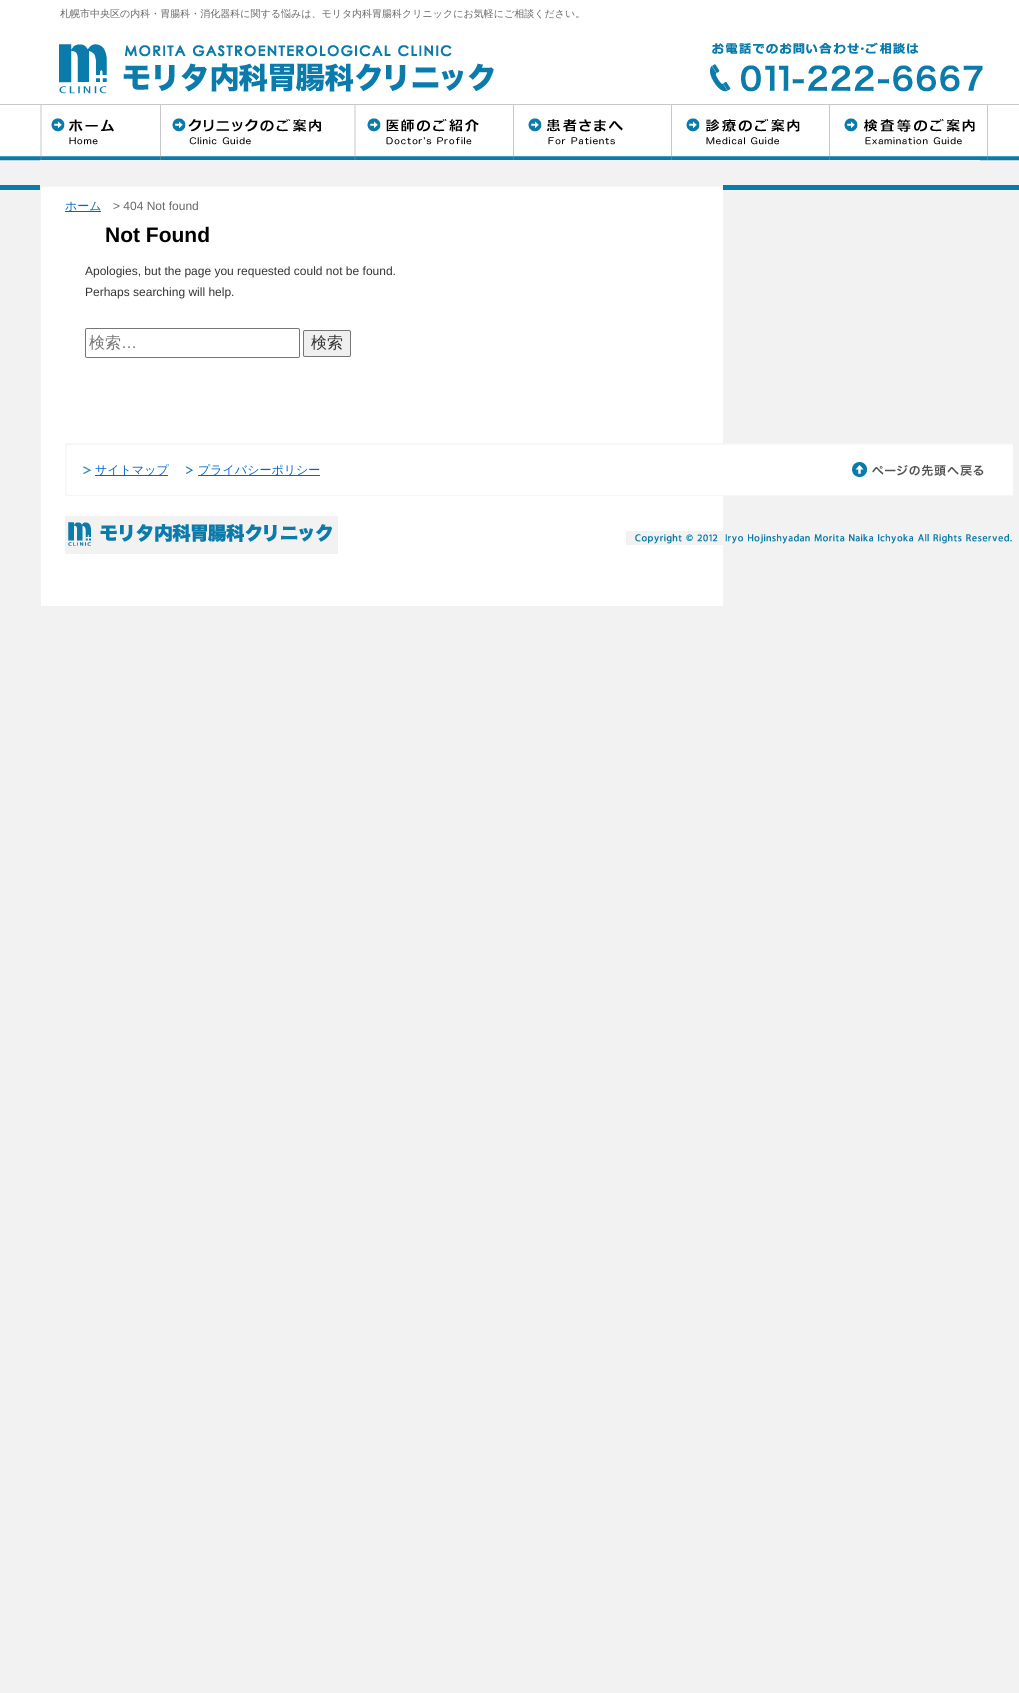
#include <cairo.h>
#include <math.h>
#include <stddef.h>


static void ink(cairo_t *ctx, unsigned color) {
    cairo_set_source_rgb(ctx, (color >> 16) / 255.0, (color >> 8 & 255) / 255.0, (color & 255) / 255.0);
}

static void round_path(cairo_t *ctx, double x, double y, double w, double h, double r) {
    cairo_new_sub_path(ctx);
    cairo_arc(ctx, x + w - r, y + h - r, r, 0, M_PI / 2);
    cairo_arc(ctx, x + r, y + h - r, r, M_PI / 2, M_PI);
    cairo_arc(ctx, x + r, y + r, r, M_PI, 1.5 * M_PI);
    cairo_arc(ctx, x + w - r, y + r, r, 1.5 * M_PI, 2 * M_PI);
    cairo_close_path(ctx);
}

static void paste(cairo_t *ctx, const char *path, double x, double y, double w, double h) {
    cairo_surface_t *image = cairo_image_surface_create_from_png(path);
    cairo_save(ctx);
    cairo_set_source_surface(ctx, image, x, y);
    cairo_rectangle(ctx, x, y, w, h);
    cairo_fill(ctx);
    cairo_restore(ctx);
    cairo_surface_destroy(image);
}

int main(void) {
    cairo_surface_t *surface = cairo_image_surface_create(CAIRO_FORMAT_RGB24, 1019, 1693);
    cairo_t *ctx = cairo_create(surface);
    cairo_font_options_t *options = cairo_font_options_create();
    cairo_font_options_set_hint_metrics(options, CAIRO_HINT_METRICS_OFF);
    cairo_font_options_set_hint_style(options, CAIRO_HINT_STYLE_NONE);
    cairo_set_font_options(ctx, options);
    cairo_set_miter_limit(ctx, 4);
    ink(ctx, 0xF2F2F2);
    cairo_paint(ctx);
    paste(ctx, "media/1.png", 0, 0, 1019, 166);
    ink(ctx, 0x0A7BAA);
    cairo_rectangle(ctx, 0, 185, 1019, 5);
    cairo_fill(ctx);
    ink(ctx, 0xF2F2F2);
    cairo_rectangle(ctx, 40, 160, 940, 6);
    cairo_fill(ctx);
    cairo_select_font_face(ctx, "WenQuanYi Zen Hei Medium", CAIRO_FONT_SLANT_NORMAL, CAIRO_FONT_WEIGHT_NORMAL);
    cairo_set_font_size(ctx, 10);
    ink(ctx, 0x666666);
    cairo_move_to(ctx, 60, 17);
    cairo_show_text(ctx, "札幌市中央区の内科・胃腸科・消化器科に関する悩みは、モリタ内科胃腸科クリニックにお気軽にご相談ください。");
    paste(ctx, "media/2.png", 59, 44, 435, 50);
    paste(ctx, "media/3.png", 710, 42, 273, 50);
    paste(ctx, "media/4.png", 40, 104, 120, 56);
    paste(ctx, "media/5.png", 160, 104, 194, 56);
    paste(ctx, "media/6.png", 354, 104, 159, 56);
    paste(ctx, "media/7.png", 513, 104, 158, 56);
    paste(ctx, "media/8.png", 671, 104, 158, 56);
    paste(ctx, "media/9.png", 829, 104, 159, 56);
    paste(ctx, "media/10.png", 40, 185, 683, 12);
    ink(ctx, 0xFFFFFF);
    cairo_rectangle(ctx, 41, 197, 682, 409);
    cairo_fill(ctx);
    ink(ctx, 0x0066CC);
    cairo_rectangle(ctx, 65, 211, 36, 1);
    cairo_fill(ctx);
    cairo_set_font_size(ctx, 12);
    cairo_move_to(ctx, 65, 210);
    cairo_show_text(ctx, "ホーム");
    cairo_select_font_face(ctx, "Liberation Sans", CAIRO_FONT_SLANT_NORMAL, CAIRO_FONT_WEIGHT_NORMAL);
    ink(ctx, 0x666666);
    cairo_move_to(ctx, 113, 210);
    cairo_show_text(ctx, "> 404 Not found");
    cairo_select_font_face(ctx, "Liberation Sans", CAIRO_FONT_SLANT_NORMAL, CAIRO_FONT_WEIGHT_BOLD);
    cairo_set_font_size(ctx, 21);
    ink(ctx, 0x000000);
    cairo_move_to(ctx, 105, 242);
    cairo_show_text(ctx, "Not Found");
    cairo_select_font_face(ctx, "Liberation Sans", CAIRO_FONT_SLANT_NORMAL, CAIRO_FONT_WEIGHT_NORMAL);
    cairo_set_font_size(ctx, 12);
    ink(ctx, 0x333333);
    cairo_move_to(ctx, 85, 275);
    cairo_show_text(ctx, "Apologies, but the page you requested could not be found.");
    cairo_move_to(ctx, 85, 296);
    cairo_show_text(ctx, "Perhaps searching will help.");
    round_path(ctx, 85.5, 328.5, 214, 29, 1.5);
    ink(ctx, 0x767676);
    cairo_set_line_width(ctx, 1);
    cairo_stroke(ctx);
    cairo_select_font_face(ctx, "WenQuanYi Zen Hei Medium", CAIRO_FONT_SLANT_NORMAL, CAIRO_FONT_WEIGHT_NORMAL);
    cairo_set_font_size(ctx, 16);
    ink(ctx, 0x757575);
    cairo_move_to(ctx, 89, 348);
    cairo_show_text(ctx, "検索");
    cairo_select_font_face(ctx, "Liberation Sans", CAIRO_FONT_SLANT_NORMAL, CAIRO_FONT_WEIGHT_NORMAL);
    cairo_move_to(ctx, 121, 348);
    cairo_show_text(ctx, "…");
    ink(ctx, 0xEFEFEF);
    round_path(ctx, 303.5, 330.5, 47, 26, 1.5);
    cairo_fill_preserve(ctx);
    ink(ctx, 0x767676);
    cairo_stroke(ctx);
    cairo_select_font_face(ctx, "WenQuanYi Zen Hei Medium", CAIRO_FONT_SLANT_NORMAL, CAIRO_FONT_WEIGHT_NORMAL);
    ink(ctx, 0x333333);
    cairo_move_to(ctx, 311, 348);
    cairo_show_text(ctx, "検索");
    paste(ctx, "media/11.png", 65, 443, 948, 53);
    paste(ctx, "media/12.png", 83, 466, 9, 8);
    ink(ctx, 0x0066CC);
    cairo_rectangle(ctx, 95, 475, 73, 1);
    cairo_fill(ctx);
    cairo_set_font_size(ctx, 12);
    cairo_move_to(ctx, 95, 474);
    cairo_show_text(ctx, "サイトマップ");
    paste(ctx, "media/13.png", 186, 466, 8, 8);
    cairo_rectangle(ctx, 198, 475, 122, 1);
    cairo_fill(ctx);
    cairo_move_to(ctx, 198, 474);
    cairo_show_text(ctx, "プライバシーポリシー");
    paste(ctx, "media/14.png", 852, 462, 132, 15);
    paste(ctx, "media/15.png", 65, 516, 273, 38);
    paste(ctx, "media/16.png", 626, 531, 386, 14);
    cairo_surface_write_to_png(surface, "image.png");
    cairo_font_options_destroy(options);
    cairo_destroy(ctx);
    cairo_surface_destroy(surface);
    return 0;
}
